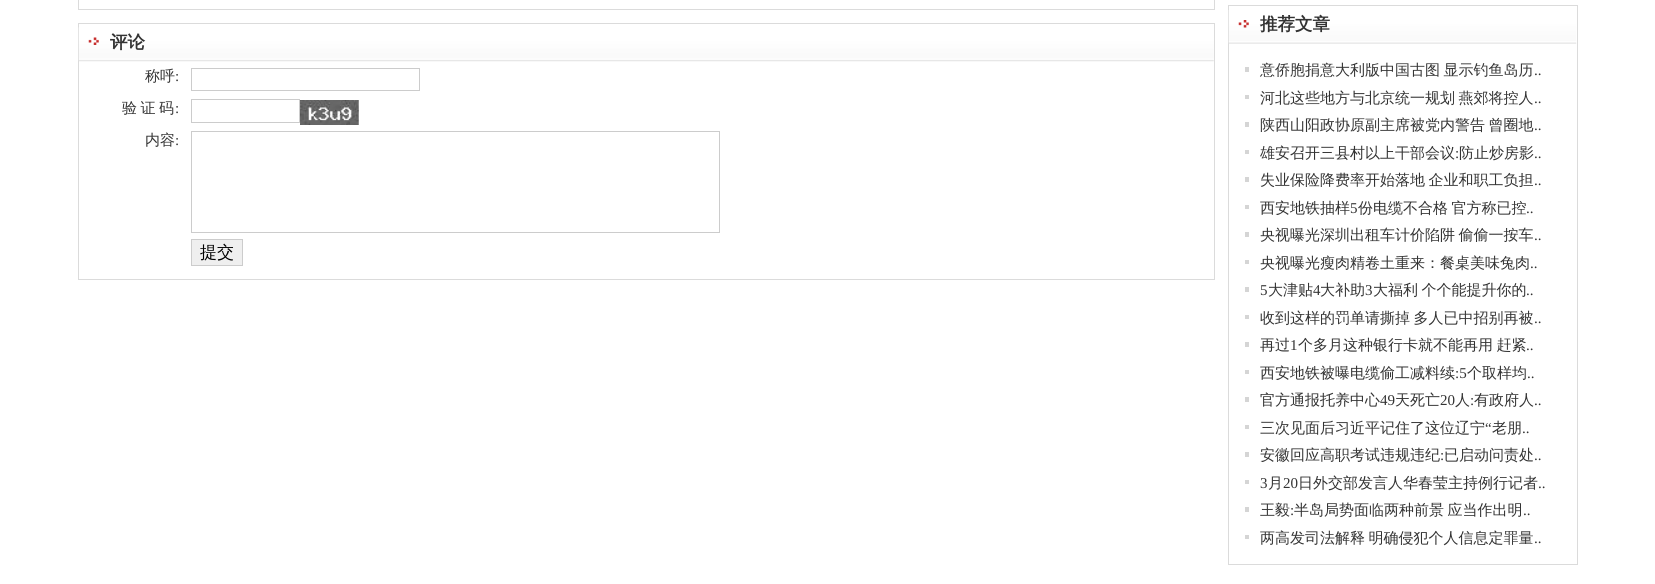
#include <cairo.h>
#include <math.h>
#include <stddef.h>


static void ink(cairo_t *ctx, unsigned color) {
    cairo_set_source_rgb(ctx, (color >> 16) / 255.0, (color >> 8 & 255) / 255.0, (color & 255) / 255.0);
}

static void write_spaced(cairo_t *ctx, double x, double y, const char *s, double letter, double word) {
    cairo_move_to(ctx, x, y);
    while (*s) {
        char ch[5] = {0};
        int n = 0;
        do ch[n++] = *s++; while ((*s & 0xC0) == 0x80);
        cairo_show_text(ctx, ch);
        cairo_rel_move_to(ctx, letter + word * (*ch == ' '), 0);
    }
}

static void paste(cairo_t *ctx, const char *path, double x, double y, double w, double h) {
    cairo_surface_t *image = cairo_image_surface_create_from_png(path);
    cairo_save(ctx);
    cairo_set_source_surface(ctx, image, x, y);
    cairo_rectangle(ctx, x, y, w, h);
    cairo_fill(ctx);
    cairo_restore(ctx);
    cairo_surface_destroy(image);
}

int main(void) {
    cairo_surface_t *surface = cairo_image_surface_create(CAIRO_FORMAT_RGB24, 1655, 584);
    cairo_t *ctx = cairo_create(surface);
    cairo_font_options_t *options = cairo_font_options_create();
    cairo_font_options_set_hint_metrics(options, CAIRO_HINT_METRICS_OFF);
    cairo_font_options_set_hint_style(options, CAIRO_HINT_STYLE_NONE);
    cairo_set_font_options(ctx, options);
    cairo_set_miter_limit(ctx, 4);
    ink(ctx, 0xFFFFFF);
    cairo_paint(ctx);
    cairo_rectangle(ctx, 78.5, -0.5, 1136, 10);
    ink(ctx, 0xDBDBDB);
    cairo_set_line_width(ctx, 1);
    cairo_stroke(ctx);
    cairo_rectangle(ctx, 78.5, 23.5, 1136, 256);
    cairo_stroke(ctx);
    paste(ctx, "media/1.png", 78, 27, 1136, 35);
    paste(ctx, "media/2.png", 88, 37, 11, 8);
    cairo_select_font_face(ctx, "WenQuanYi Zen Hei", CAIRO_FONT_SLANT_NORMAL, CAIRO_FONT_WEIGHT_BOLD);
    cairo_set_font_size(ctx, 17.5);
    ink(ctx, 0x333333);
    cairo_move_to(ctx, 110, 48);
    cairo_show_text(ctx, "评论");
    cairo_select_font_face(ctx, "WenQuanYi Zen Hei Medium", CAIRO_FONT_SLANT_NORMAL, CAIRO_FONT_WEIGHT_NORMAL);
    cairo_set_font_size(ctx, 15);
    cairo_move_to(ctx, 145, 81);
    cairo_show_text(ctx, "称呼");
    cairo_select_font_face(ctx, "Liberation Serif", CAIRO_FONT_SLANT_NORMAL, CAIRO_FONT_WEIGHT_NORMAL);
    cairo_move_to(ctx, 175, 81);
    cairo_show_text(ctx, ":");
    cairo_rectangle(ctx, 191.5, 68.5, 228, 22);
    ink(ctx, 0xCCCCCC);
    cairo_stroke(ctx);
    cairo_select_font_face(ctx, "WenQuanYi Zen Hei Medium", CAIRO_FONT_SLANT_NORMAL, CAIRO_FONT_WEIGHT_NORMAL);
    ink(ctx, 0x333333);
    write_spaced(ctx, 122, 113, "验 证 码", 0, -1);
    cairo_select_font_face(ctx, "Liberation Serif", CAIRO_FONT_SLANT_NORMAL, CAIRO_FONT_WEIGHT_NORMAL);
    cairo_move_to(ctx, 175, 113);
    cairo_show_text(ctx, ":");
    cairo_rectangle(ctx, 191.5, 99.5, 108, 23);
    ink(ctx, 0xCCCCCC);
    cairo_stroke(ctx);
    paste(ctx, "media/3.png", 300, 100, 59, 25);
    cairo_select_font_face(ctx, "WenQuanYi Zen Hei Medium", CAIRO_FONT_SLANT_NORMAL, CAIRO_FONT_WEIGHT_NORMAL);
    ink(ctx, 0x333333);
    cairo_move_to(ctx, 145, 145);
    cairo_show_text(ctx, "内容");
    cairo_select_font_face(ctx, "Liberation Serif", CAIRO_FONT_SLANT_NORMAL, CAIRO_FONT_WEIGHT_NORMAL);
    cairo_move_to(ctx, 175, 145);
    cairo_show_text(ctx, ":");
    cairo_rectangle(ctx, 191.5, 131.5, 528, 101);
    ink(ctx, 0xCCCCCC);
    cairo_stroke(ctx);
    ink(ctx, 0xEFEFEF);
    cairo_rectangle(ctx, 191.5, 239.5, 51, 26);
    cairo_fill_preserve(ctx);
    ink(ctx, 0xCCCCCC);
    cairo_stroke(ctx);
    cairo_select_font_face(ctx, "WenQuanYi Zen Hei Medium", CAIRO_FONT_SLANT_NORMAL, CAIRO_FONT_WEIGHT_NORMAL);
    cairo_set_font_size(ctx, 17);
    ink(ctx, 0x000000);
    cairo_move_to(ctx, 200, 258);
    cairo_show_text(ctx, "提交");
    cairo_rectangle(ctx, 1228.5, 5.5, 349, 559);
    ink(ctx, 0xDBDBDB);
    cairo_stroke(ctx);
    paste(ctx, "media/4.png", 1228, 10, 349, 34);
    paste(ctx, "media/5.png", 1238, 20, 11, 8);
    cairo_select_font_face(ctx, "WenQuanYi Zen Hei", CAIRO_FONT_SLANT_NORMAL, CAIRO_FONT_WEIGHT_BOLD);
    cairo_set_font_size(ctx, 17.5);
    ink(ctx, 0x333333);
    cairo_move_to(ctx, 1260, 30);
    cairo_show_text(ctx, "推荐文章");
    ink(ctx, 0xD5D5D5);
    cairo_rectangle(ctx, 1245, 67, 4, 5);
    cairo_fill(ctx);
    cairo_select_font_face(ctx, "WenQuanYi Zen Hei Medium", CAIRO_FONT_SLANT_NORMAL, CAIRO_FONT_WEIGHT_NORMAL);
    cairo_set_font_size(ctx, 15);
    ink(ctx, 0x333333);
    write_spaced(ctx, 1260, 75, "意侨胞捐意大利版中国古图 显示钓鱼岛历", 0, -1);
    cairo_select_font_face(ctx, "Liberation Serif", CAIRO_FONT_SLANT_NORMAL, CAIRO_FONT_WEIGHT_NORMAL);
    cairo_move_to(ctx, 1534, 75);
    cairo_show_text(ctx, "..");
    ink(ctx, 0xD5D5D5);
    cairo_rectangle(ctx, 1245, 95, 4, 4);
    cairo_fill(ctx);
    cairo_select_font_face(ctx, "WenQuanYi Zen Hei Medium", CAIRO_FONT_SLANT_NORMAL, CAIRO_FONT_WEIGHT_NORMAL);
    ink(ctx, 0x333333);
    write_spaced(ctx, 1260, 103, "河北这些地方与北京统一规划 燕郊将控人", 0, -1);
    cairo_select_font_face(ctx, "Liberation Serif", CAIRO_FONT_SLANT_NORMAL, CAIRO_FONT_WEIGHT_NORMAL);
    cairo_move_to(ctx, 1534, 103);
    cairo_show_text(ctx, "..");
    ink(ctx, 0xD5D5D5);
    cairo_rectangle(ctx, 1245, 122, 4, 5);
    cairo_fill(ctx);
    cairo_select_font_face(ctx, "WenQuanYi Zen Hei Medium", CAIRO_FONT_SLANT_NORMAL, CAIRO_FONT_WEIGHT_NORMAL);
    ink(ctx, 0x333333);
    write_spaced(ctx, 1260, 130, "陕西山阳政协原副主席被党内警告 曾圈地", 0, -1);
    cairo_select_font_face(ctx, "Liberation Serif", CAIRO_FONT_SLANT_NORMAL, CAIRO_FONT_WEIGHT_NORMAL);
    cairo_move_to(ctx, 1534, 130);
    cairo_show_text(ctx, "..");
    ink(ctx, 0xD5D5D5);
    cairo_rectangle(ctx, 1245, 150, 4, 4);
    cairo_fill(ctx);
    cairo_select_font_face(ctx, "WenQuanYi Zen Hei Medium", CAIRO_FONT_SLANT_NORMAL, CAIRO_FONT_WEIGHT_NORMAL);
    ink(ctx, 0x333333);
    cairo_move_to(ctx, 1260, 158);
    cairo_show_text(ctx, "雄安召开三县村以上干部会议");
    cairo_select_font_face(ctx, "Liberation Serif", CAIRO_FONT_SLANT_NORMAL, CAIRO_FONT_WEIGHT_NORMAL);
    cairo_move_to(ctx, 1455, 158);
    cairo_show_text(ctx, ":");
    cairo_select_font_face(ctx, "WenQuanYi Zen Hei Medium", CAIRO_FONT_SLANT_NORMAL, CAIRO_FONT_WEIGHT_NORMAL);
    cairo_move_to(ctx, 1459, 158);
    cairo_show_text(ctx, "防止炒房影");
    cairo_select_font_face(ctx, "Liberation Serif", CAIRO_FONT_SLANT_NORMAL, CAIRO_FONT_WEIGHT_NORMAL);
    cairo_move_to(ctx, 1534, 158);
    cairo_show_text(ctx, "..");
    ink(ctx, 0xD5D5D5);
    cairo_rectangle(ctx, 1245, 177, 4, 5);
    cairo_fill(ctx);
    cairo_select_font_face(ctx, "WenQuanYi Zen Hei Medium", CAIRO_FONT_SLANT_NORMAL, CAIRO_FONT_WEIGHT_NORMAL);
    ink(ctx, 0x333333);
    write_spaced(ctx, 1260, 185, "失业保险降费率开始落地 企业和职工负担", 0, -1);
    cairo_select_font_face(ctx, "Liberation Serif", CAIRO_FONT_SLANT_NORMAL, CAIRO_FONT_WEIGHT_NORMAL);
    cairo_move_to(ctx, 1534, 185);
    cairo_show_text(ctx, "..");
    ink(ctx, 0xD5D5D5);
    cairo_rectangle(ctx, 1245, 205, 4, 4);
    cairo_fill(ctx);
    cairo_select_font_face(ctx, "WenQuanYi Zen Hei Medium", CAIRO_FONT_SLANT_NORMAL, CAIRO_FONT_WEIGHT_NORMAL);
    ink(ctx, 0x333333);
    cairo_move_to(ctx, 1260, 213);
    cairo_show_text(ctx, "西安地铁抽样");
    cairo_select_font_face(ctx, "Liberation Serif", CAIRO_FONT_SLANT_NORMAL, CAIRO_FONT_WEIGHT_NORMAL);
    cairo_move_to(ctx, 1350, 213);
    cairo_show_text(ctx, "5");
    cairo_select_font_face(ctx, "WenQuanYi Zen Hei Medium", CAIRO_FONT_SLANT_NORMAL, CAIRO_FONT_WEIGHT_NORMAL);
    write_spaced(ctx, 1358, 213, "份电缆不合格 官方称已控", 0, -1);
    cairo_select_font_face(ctx, "Liberation Serif", CAIRO_FONT_SLANT_NORMAL, CAIRO_FONT_WEIGHT_NORMAL);
    cairo_move_to(ctx, 1526, 213);
    cairo_show_text(ctx, "..");
    ink(ctx, 0xD5D5D5);
    cairo_rectangle(ctx, 1245, 232, 4, 5);
    cairo_fill(ctx);
    cairo_select_font_face(ctx, "WenQuanYi Zen Hei Medium", CAIRO_FONT_SLANT_NORMAL, CAIRO_FONT_WEIGHT_NORMAL);
    ink(ctx, 0x333333);
    write_spaced(ctx, 1260, 240, "央视曝光深圳出租车计价陷阱 偷偷一按车", 0, -1);
    cairo_select_font_face(ctx, "Liberation Serif", CAIRO_FONT_SLANT_NORMAL, CAIRO_FONT_WEIGHT_NORMAL);
    cairo_move_to(ctx, 1534, 240);
    cairo_show_text(ctx, "..");
    ink(ctx, 0xD5D5D5);
    cairo_rectangle(ctx, 1245, 260, 4, 4);
    cairo_fill(ctx);
    cairo_select_font_face(ctx, "WenQuanYi Zen Hei Medium", CAIRO_FONT_SLANT_NORMAL, CAIRO_FONT_WEIGHT_NORMAL);
    ink(ctx, 0x333333);
    cairo_move_to(ctx, 1260, 268);
    cairo_show_text(ctx, "央视曝光瘦肉精卷土重来：餐桌美味兔肉");
    cairo_select_font_face(ctx, "Liberation Serif", CAIRO_FONT_SLANT_NORMAL, CAIRO_FONT_WEIGHT_NORMAL);
    cairo_move_to(ctx, 1530, 268);
    cairo_show_text(ctx, "..");
    ink(ctx, 0xD5D5D5);
    cairo_rectangle(ctx, 1245, 287, 4, 5);
    cairo_fill(ctx);
    ink(ctx, 0x333333);
    cairo_move_to(ctx, 1260, 295);
    cairo_show_text(ctx, "5");
    cairo_select_font_face(ctx, "WenQuanYi Zen Hei Medium", CAIRO_FONT_SLANT_NORMAL, CAIRO_FONT_WEIGHT_NORMAL);
    cairo_move_to(ctx, 1268, 295);
    cairo_show_text(ctx, "大津贴");
    cairo_select_font_face(ctx, "Liberation Serif", CAIRO_FONT_SLANT_NORMAL, CAIRO_FONT_WEIGHT_NORMAL);
    cairo_move_to(ctx, 1313, 295);
    cairo_show_text(ctx, "4");
    cairo_select_font_face(ctx, "WenQuanYi Zen Hei Medium", CAIRO_FONT_SLANT_NORMAL, CAIRO_FONT_WEIGHT_NORMAL);
    cairo_move_to(ctx, 1320, 295);
    cairo_show_text(ctx, "大补助");
    cairo_select_font_face(ctx, "Liberation Serif", CAIRO_FONT_SLANT_NORMAL, CAIRO_FONT_WEIGHT_NORMAL);
    cairo_move_to(ctx, 1365, 295);
    cairo_show_text(ctx, "3");
    cairo_select_font_face(ctx, "WenQuanYi Zen Hei Medium", CAIRO_FONT_SLANT_NORMAL, CAIRO_FONT_WEIGHT_NORMAL);
    write_spaced(ctx, 1373, 295, "大福利 个个能提升你的", 0, -1);
    cairo_select_font_face(ctx, "Liberation Serif", CAIRO_FONT_SLANT_NORMAL, CAIRO_FONT_WEIGHT_NORMAL);
    cairo_move_to(ctx, 1526, 295);
    cairo_show_text(ctx, "..");
    ink(ctx, 0xD5D5D5);
    cairo_rectangle(ctx, 1245, 315, 4, 4);
    cairo_fill(ctx);
    cairo_select_font_face(ctx, "WenQuanYi Zen Hei Medium", CAIRO_FONT_SLANT_NORMAL, CAIRO_FONT_WEIGHT_NORMAL);
    ink(ctx, 0x333333);
    write_spaced(ctx, 1260, 323, "收到这样的罚单请撕掉 多人已中招别再被", 0, -1);
    cairo_select_font_face(ctx, "Liberation Serif", CAIRO_FONT_SLANT_NORMAL, CAIRO_FONT_WEIGHT_NORMAL);
    cairo_move_to(ctx, 1534, 323);
    cairo_show_text(ctx, "..");
    ink(ctx, 0xD5D5D5);
    cairo_rectangle(ctx, 1245, 342, 4, 5);
    cairo_fill(ctx);
    cairo_select_font_face(ctx, "WenQuanYi Zen Hei Medium", CAIRO_FONT_SLANT_NORMAL, CAIRO_FONT_WEIGHT_NORMAL);
    ink(ctx, 0x333333);
    cairo_move_to(ctx, 1260, 350);
    cairo_show_text(ctx, "再过");
    cairo_select_font_face(ctx, "Liberation Serif", CAIRO_FONT_SLANT_NORMAL, CAIRO_FONT_WEIGHT_NORMAL);
    cairo_move_to(ctx, 1290, 350);
    cairo_show_text(ctx, "1");
    cairo_select_font_face(ctx, "WenQuanYi Zen Hei Medium", CAIRO_FONT_SLANT_NORMAL, CAIRO_FONT_WEIGHT_NORMAL);
    write_spaced(ctx, 1298, 350, "个多月这种银行卡就不能再用 赶紧", 0, -1);
    cairo_select_font_face(ctx, "Liberation Serif", CAIRO_FONT_SLANT_NORMAL, CAIRO_FONT_WEIGHT_NORMAL);
    cairo_move_to(ctx, 1526, 350);
    cairo_show_text(ctx, "..");
    ink(ctx, 0xD5D5D5);
    cairo_rectangle(ctx, 1245, 370, 4, 4);
    cairo_fill(ctx);
    cairo_select_font_face(ctx, "WenQuanYi Zen Hei Medium", CAIRO_FONT_SLANT_NORMAL, CAIRO_FONT_WEIGHT_NORMAL);
    ink(ctx, 0x333333);
    cairo_move_to(ctx, 1260, 378);
    cairo_show_text(ctx, "西安地铁被曝电缆偷工减料续");
    cairo_select_font_face(ctx, "Liberation Serif", CAIRO_FONT_SLANT_NORMAL, CAIRO_FONT_WEIGHT_NORMAL);
    cairo_move_to(ctx, 1455, 378);
    cairo_show_text(ctx, ":5");
    cairo_select_font_face(ctx, "WenQuanYi Zen Hei Medium", CAIRO_FONT_SLANT_NORMAL, CAIRO_FONT_WEIGHT_NORMAL);
    cairo_move_to(ctx, 1467, 378);
    cairo_show_text(ctx, "个取样均");
    cairo_select_font_face(ctx, "Liberation Serif", CAIRO_FONT_SLANT_NORMAL, CAIRO_FONT_WEIGHT_NORMAL);
    cairo_move_to(ctx, 1527, 378);
    cairo_show_text(ctx, "..");
    ink(ctx, 0xD5D5D5);
    cairo_rectangle(ctx, 1245, 397, 4, 5);
    cairo_fill(ctx);
    cairo_select_font_face(ctx, "WenQuanYi Zen Hei Medium", CAIRO_FONT_SLANT_NORMAL, CAIRO_FONT_WEIGHT_NORMAL);
    ink(ctx, 0x333333);
    cairo_move_to(ctx, 1260, 405);
    cairo_show_text(ctx, "官方通报托养中心");
    cairo_select_font_face(ctx, "Liberation Serif", CAIRO_FONT_SLANT_NORMAL, CAIRO_FONT_WEIGHT_NORMAL);
    cairo_move_to(ctx, 1380, 405);
    cairo_show_text(ctx, "49");
    cairo_select_font_face(ctx, "WenQuanYi Zen Hei Medium", CAIRO_FONT_SLANT_NORMAL, CAIRO_FONT_WEIGHT_NORMAL);
    cairo_move_to(ctx, 1395, 405);
    cairo_show_text(ctx, "天死亡");
    cairo_select_font_face(ctx, "Liberation Serif", CAIRO_FONT_SLANT_NORMAL, CAIRO_FONT_WEIGHT_NORMAL);
    cairo_move_to(ctx, 1440, 405);
    cairo_show_text(ctx, "20");
    cairo_select_font_face(ctx, "WenQuanYi Zen Hei Medium", CAIRO_FONT_SLANT_NORMAL, CAIRO_FONT_WEIGHT_NORMAL);
    cairo_move_to(ctx, 1455, 405);
    cairo_show_text(ctx, "人");
    cairo_select_font_face(ctx, "Liberation Serif", CAIRO_FONT_SLANT_NORMAL, CAIRO_FONT_WEIGHT_NORMAL);
    cairo_move_to(ctx, 1470, 405);
    cairo_show_text(ctx, ":");
    cairo_select_font_face(ctx, "WenQuanYi Zen Hei Medium", CAIRO_FONT_SLANT_NORMAL, CAIRO_FONT_WEIGHT_NORMAL);
    cairo_move_to(ctx, 1474, 405);
    cairo_show_text(ctx, "有政府人");
    cairo_select_font_face(ctx, "Liberation Serif", CAIRO_FONT_SLANT_NORMAL, CAIRO_FONT_WEIGHT_NORMAL);
    cairo_move_to(ctx, 1534, 405);
    cairo_show_text(ctx, "..");
    ink(ctx, 0xD5D5D5);
    cairo_rectangle(ctx, 1245, 425, 4, 4);
    cairo_fill(ctx);
    cairo_select_font_face(ctx, "WenQuanYi Zen Hei Medium", CAIRO_FONT_SLANT_NORMAL, CAIRO_FONT_WEIGHT_NORMAL);
    ink(ctx, 0x333333);
    cairo_move_to(ctx, 1260, 433);
    cairo_show_text(ctx, "三次见面后习近平记住了这位辽宁");
    cairo_select_font_face(ctx, "Liberation Serif", CAIRO_FONT_SLANT_NORMAL, CAIRO_FONT_WEIGHT_NORMAL);
    cairo_move_to(ctx, 1485, 433);
    cairo_show_text(ctx, "“");
    cairo_select_font_face(ctx, "WenQuanYi Zen Hei Medium", CAIRO_FONT_SLANT_NORMAL, CAIRO_FONT_WEIGHT_NORMAL);
    cairo_move_to(ctx, 1492, 433);
    cairo_show_text(ctx, "老朋");
    cairo_select_font_face(ctx, "Liberation Serif", CAIRO_FONT_SLANT_NORMAL, CAIRO_FONT_WEIGHT_NORMAL);
    cairo_move_to(ctx, 1522, 433);
    cairo_show_text(ctx, "..");
    ink(ctx, 0xD5D5D5);
    cairo_rectangle(ctx, 1245, 452, 4, 5);
    cairo_fill(ctx);
    cairo_select_font_face(ctx, "WenQuanYi Zen Hei Medium", CAIRO_FONT_SLANT_NORMAL, CAIRO_FONT_WEIGHT_NORMAL);
    ink(ctx, 0x333333);
    cairo_move_to(ctx, 1260, 460);
    cairo_show_text(ctx, "安徽回应高职考试违规违纪");
    cairo_select_font_face(ctx, "Liberation Serif", CAIRO_FONT_SLANT_NORMAL, CAIRO_FONT_WEIGHT_NORMAL);
    cairo_move_to(ctx, 1440, 460);
    cairo_show_text(ctx, ":");
    cairo_select_font_face(ctx, "WenQuanYi Zen Hei Medium", CAIRO_FONT_SLANT_NORMAL, CAIRO_FONT_WEIGHT_NORMAL);
    cairo_move_to(ctx, 1444, 460);
    cairo_show_text(ctx, "已启动问责处");
    cairo_select_font_face(ctx, "Liberation Serif", CAIRO_FONT_SLANT_NORMAL, CAIRO_FONT_WEIGHT_NORMAL);
    cairo_move_to(ctx, 1534, 460);
    cairo_show_text(ctx, "..");
    ink(ctx, 0xD5D5D5);
    cairo_rectangle(ctx, 1245, 480, 4, 4);
    cairo_fill(ctx);
    ink(ctx, 0x333333);
    cairo_move_to(ctx, 1260, 488);
    cairo_show_text(ctx, "3");
    cairo_select_font_face(ctx, "WenQuanYi Zen Hei Medium", CAIRO_FONT_SLANT_NORMAL, CAIRO_FONT_WEIGHT_NORMAL);
    cairo_move_to(ctx, 1268, 488);
    cairo_show_text(ctx, "月");
    cairo_select_font_face(ctx, "Liberation Serif", CAIRO_FONT_SLANT_NORMAL, CAIRO_FONT_WEIGHT_NORMAL);
    cairo_move_to(ctx, 1283, 488);
    cairo_show_text(ctx, "20");
    cairo_select_font_face(ctx, "WenQuanYi Zen Hei Medium", CAIRO_FONT_SLANT_NORMAL, CAIRO_FONT_WEIGHT_NORMAL);
    cairo_move_to(ctx, 1298, 488);
    cairo_show_text(ctx, "日外交部发言人华春莹主持例行记者");
    cairo_select_font_face(ctx, "Liberation Serif", CAIRO_FONT_SLANT_NORMAL, CAIRO_FONT_WEIGHT_NORMAL);
    cairo_move_to(ctx, 1538, 488);
    cairo_show_text(ctx, "..");
    ink(ctx, 0xD5D5D5);
    cairo_rectangle(ctx, 1245, 507, 4, 5);
    cairo_fill(ctx);
    cairo_select_font_face(ctx, "WenQuanYi Zen Hei Medium", CAIRO_FONT_SLANT_NORMAL, CAIRO_FONT_WEIGHT_NORMAL);
    ink(ctx, 0x333333);
    cairo_move_to(ctx, 1260, 515);
    cairo_show_text(ctx, "王毅");
    cairo_select_font_face(ctx, "Liberation Serif", CAIRO_FONT_SLANT_NORMAL, CAIRO_FONT_WEIGHT_NORMAL);
    cairo_move_to(ctx, 1290, 515);
    cairo_show_text(ctx, ":");
    cairo_select_font_face(ctx, "WenQuanYi Zen Hei Medium", CAIRO_FONT_SLANT_NORMAL, CAIRO_FONT_WEIGHT_NORMAL);
    write_spaced(ctx, 1294, 515, "半岛局势面临两种前景 应当作出明", 0, -1);
    cairo_select_font_face(ctx, "Liberation Serif", CAIRO_FONT_SLANT_NORMAL, CAIRO_FONT_WEIGHT_NORMAL);
    cairo_move_to(ctx, 1523, 515);
    cairo_show_text(ctx, "..");
    ink(ctx, 0xD5D5D5);
    cairo_rectangle(ctx, 1245, 535, 4, 4);
    cairo_fill(ctx);
    cairo_select_font_face(ctx, "WenQuanYi Zen Hei Medium", CAIRO_FONT_SLANT_NORMAL, CAIRO_FONT_WEIGHT_NORMAL);
    ink(ctx, 0x333333);
    write_spaced(ctx, 1260, 543, "两高发司法解释 明确侵犯个人信息定罪量", 0, -1);
    cairo_select_font_face(ctx, "Liberation Serif", CAIRO_FONT_SLANT_NORMAL, CAIRO_FONT_WEIGHT_NORMAL);
    cairo_move_to(ctx, 1534, 543);
    cairo_show_text(ctx, "..");
    cairo_surface_write_to_png(surface, "image.png");
    cairo_font_options_destroy(options);
    cairo_destroy(ctx);
    cairo_surface_destroy(surface);
    return 0;
}
